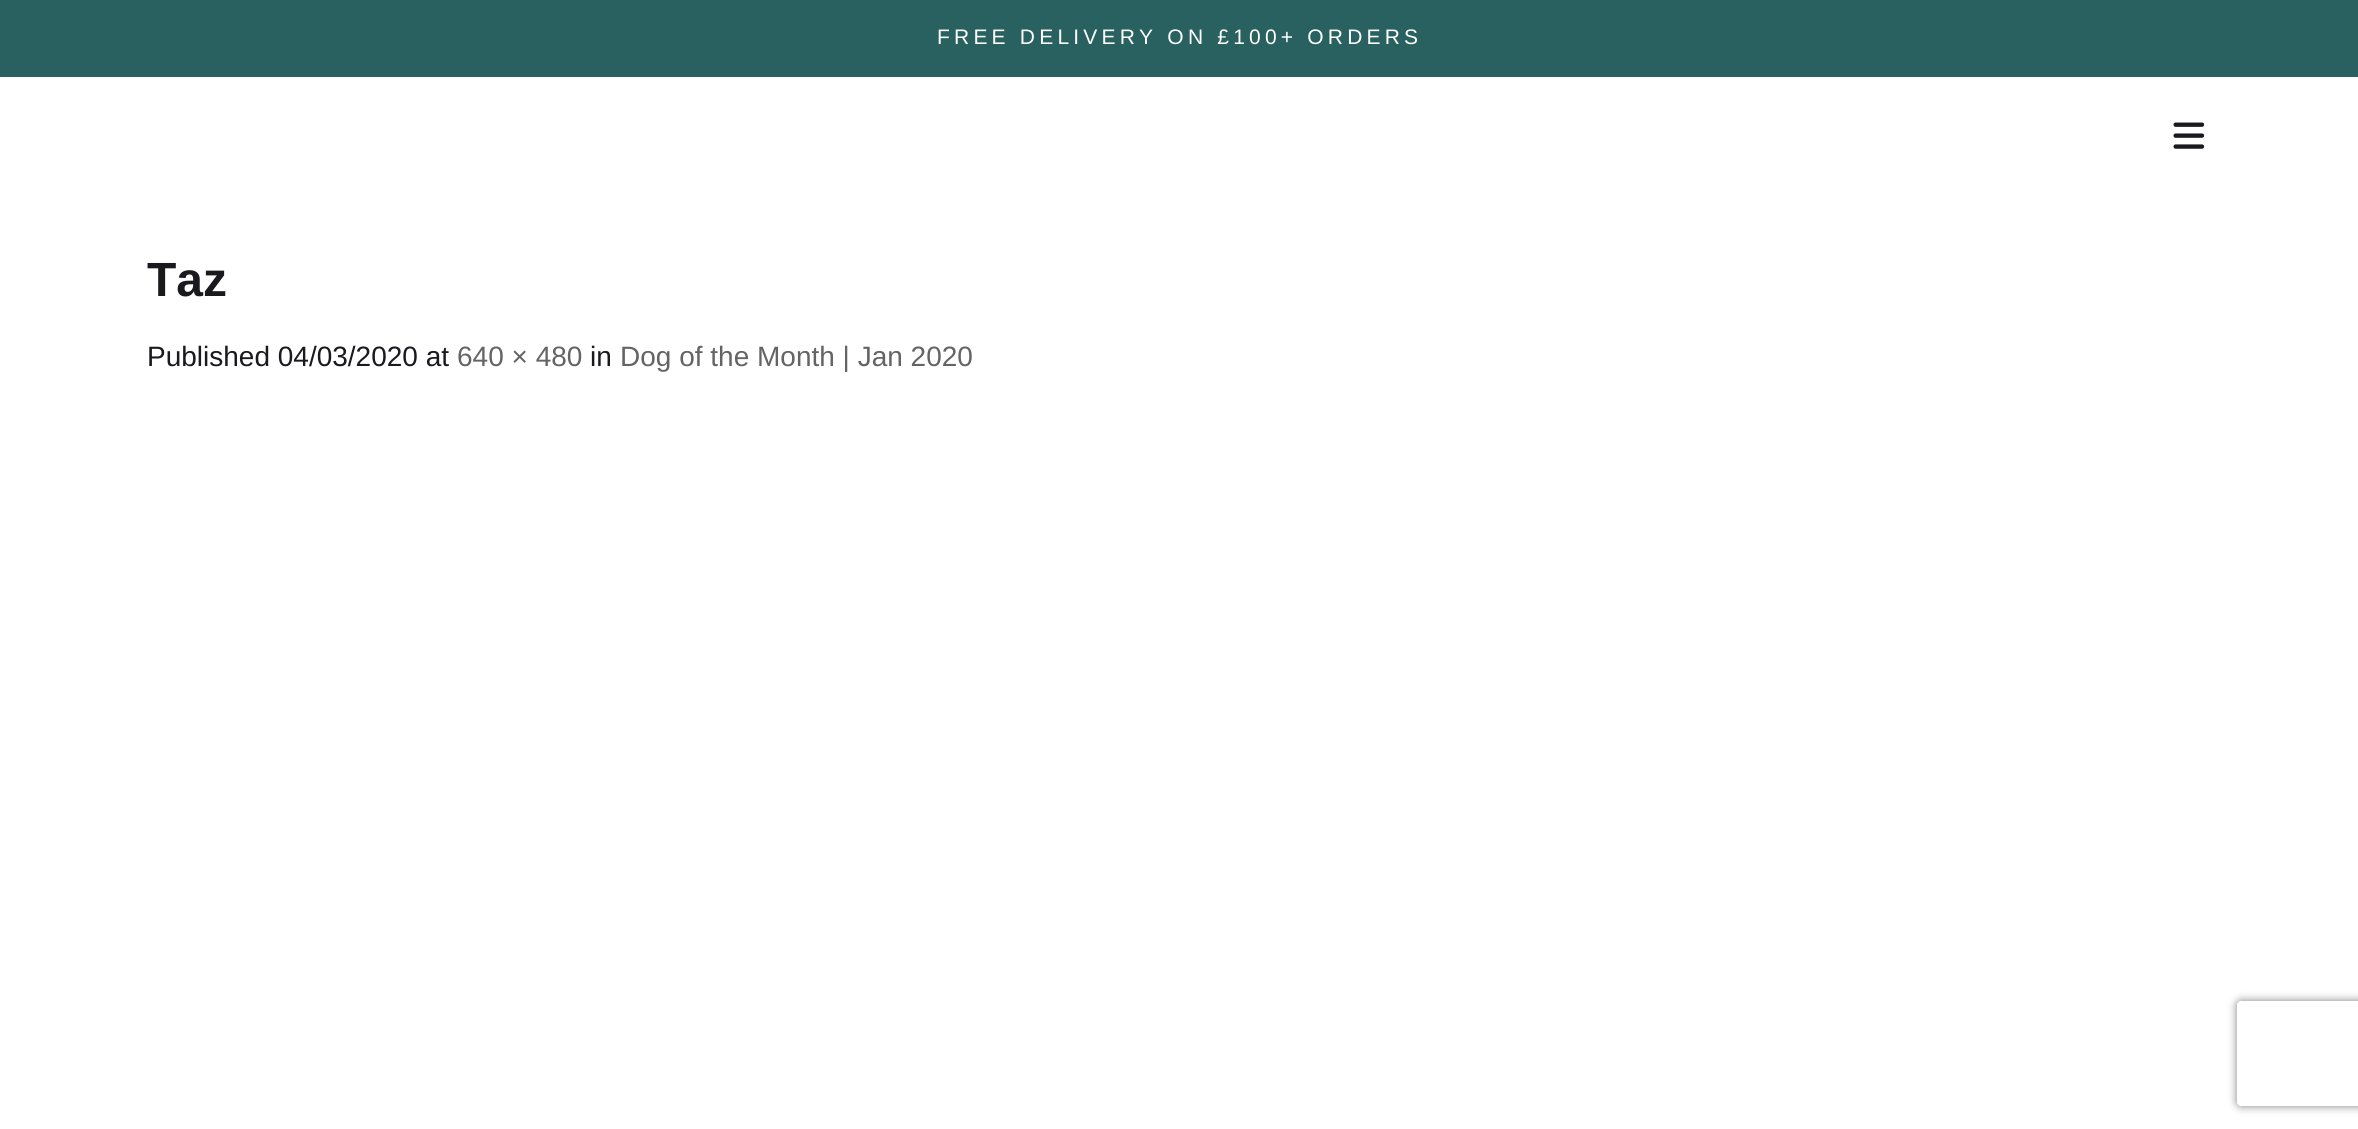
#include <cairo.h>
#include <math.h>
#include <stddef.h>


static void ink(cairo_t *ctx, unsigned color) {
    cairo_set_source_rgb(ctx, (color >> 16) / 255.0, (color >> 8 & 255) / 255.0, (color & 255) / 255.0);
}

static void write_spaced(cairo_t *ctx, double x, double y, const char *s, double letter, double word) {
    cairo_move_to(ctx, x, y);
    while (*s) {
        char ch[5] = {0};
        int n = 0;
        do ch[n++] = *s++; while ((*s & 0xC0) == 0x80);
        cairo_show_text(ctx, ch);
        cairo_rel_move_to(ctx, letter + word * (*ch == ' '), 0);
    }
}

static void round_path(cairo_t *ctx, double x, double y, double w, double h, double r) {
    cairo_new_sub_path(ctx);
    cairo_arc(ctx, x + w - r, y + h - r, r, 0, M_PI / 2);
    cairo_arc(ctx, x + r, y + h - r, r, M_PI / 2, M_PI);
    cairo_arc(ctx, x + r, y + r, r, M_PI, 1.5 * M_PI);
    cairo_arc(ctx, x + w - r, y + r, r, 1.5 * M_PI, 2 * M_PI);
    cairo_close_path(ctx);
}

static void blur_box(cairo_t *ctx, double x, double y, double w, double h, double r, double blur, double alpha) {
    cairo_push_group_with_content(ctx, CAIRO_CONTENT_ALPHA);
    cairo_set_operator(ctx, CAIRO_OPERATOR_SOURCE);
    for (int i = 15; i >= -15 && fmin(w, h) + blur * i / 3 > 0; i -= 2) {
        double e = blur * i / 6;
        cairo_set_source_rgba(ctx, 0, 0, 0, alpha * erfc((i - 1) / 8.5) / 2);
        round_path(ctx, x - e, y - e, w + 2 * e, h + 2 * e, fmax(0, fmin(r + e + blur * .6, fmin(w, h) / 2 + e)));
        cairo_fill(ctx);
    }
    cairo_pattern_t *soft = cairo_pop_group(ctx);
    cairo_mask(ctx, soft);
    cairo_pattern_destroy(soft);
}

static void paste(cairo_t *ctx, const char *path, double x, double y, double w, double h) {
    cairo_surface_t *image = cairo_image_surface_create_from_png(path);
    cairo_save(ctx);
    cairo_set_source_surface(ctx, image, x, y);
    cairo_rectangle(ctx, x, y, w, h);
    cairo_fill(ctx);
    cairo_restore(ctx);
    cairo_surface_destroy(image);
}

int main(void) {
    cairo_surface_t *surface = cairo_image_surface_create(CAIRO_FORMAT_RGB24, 2358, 1129);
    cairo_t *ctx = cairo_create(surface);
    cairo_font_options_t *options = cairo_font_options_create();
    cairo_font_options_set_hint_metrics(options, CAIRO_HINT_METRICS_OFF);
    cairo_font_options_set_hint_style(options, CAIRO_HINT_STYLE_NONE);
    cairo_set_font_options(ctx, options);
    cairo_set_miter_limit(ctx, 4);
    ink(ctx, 0xFFFFFF);
    cairo_paint(ctx);
    ink(ctx, 0x296160);
    cairo_rectangle(ctx, 0, 0, 2358, 77);
    cairo_fill(ctx);
    cairo_select_font_face(ctx, "Liberation Sans", CAIRO_FONT_SLANT_NORMAL, CAIRO_FONT_WEIGHT_NORMAL);
    cairo_set_font_size(ctx, 21);
    ink(ctx, 0xFFFFFF);
    write_spaced(ctx, 937, 44, "FREE DELIVERY ON £100+ ORDERS", 4.2, 0);
    paste(ctx, "media/1.png", 2173, 122, 32, 27);
    cairo_select_font_face(ctx, "Liberation Sans", CAIRO_FONT_SLANT_NORMAL, CAIRO_FONT_WEIGHT_BOLD);
    cairo_set_font_size(ctx, 48);
    ink(ctx, 0x19191E);
    cairo_move_to(ctx, 147, 296);
    cairo_show_text(ctx, "Taz");
    cairo_select_font_face(ctx, "Liberation Sans", CAIRO_FONT_SLANT_NORMAL, CAIRO_FONT_WEIGHT_NORMAL);
    cairo_set_font_size(ctx, 28);
    cairo_move_to(ctx, 147, 366);
    cairo_show_text(ctx, "Published 04/03/2020 at");
    ink(ctx, 0x646464);
    cairo_move_to(ctx, 457, 366);
    cairo_show_text(ctx, "640 × 480");
    ink(ctx, 0x19191E);
    cairo_move_to(ctx, 590, 366);
    cairo_show_text(ctx, "in");
    ink(ctx, 0x646464);
    cairo_move_to(ctx, 620, 366);
    cairo_show_text(ctx, "Dog of the Month | Jan 2020");
    cairo_save(ctx);
    cairo_set_fill_rule(ctx, CAIRO_FILL_RULE_EVEN_ODD);
    cairo_new_path(ctx);
    cairo_move_to(ctx, 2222, 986);
    cairo_line_to(ctx, 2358, 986);
    cairo_line_to(ctx, 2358, 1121);
    cairo_line_to(ctx, 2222, 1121);
    cairo_close_path(ctx);
    cairo_move_to(ctx, 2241, 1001);
    cairo_line_to(ctx, 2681, 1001);
    cairo_curve_to(ctx, 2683, 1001, 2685, 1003, 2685, 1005);
    cairo_line_to(ctx, 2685, 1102);
    cairo_curve_to(ctx, 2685, 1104, 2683, 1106, 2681, 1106);
    cairo_line_to(ctx, 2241, 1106);
    cairo_curve_to(ctx, 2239, 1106, 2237, 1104, 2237, 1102);
    cairo_line_to(ctx, 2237, 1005);
    cairo_curve_to(ctx, 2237, 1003, 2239, 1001, 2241, 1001);
    cairo_close_path(ctx);
    cairo_clip(ctx);
    ink(ctx, 0x808080);
    blur_box(ctx, 2237, 1001, 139, 105, 4, 4.5, 1);
    cairo_restore(ctx);
    cairo_surface_write_to_png(surface, "image.png");
    cairo_font_options_destroy(options);
    cairo_destroy(ctx);
    cairo_surface_destroy(surface);
    return 0;
}
